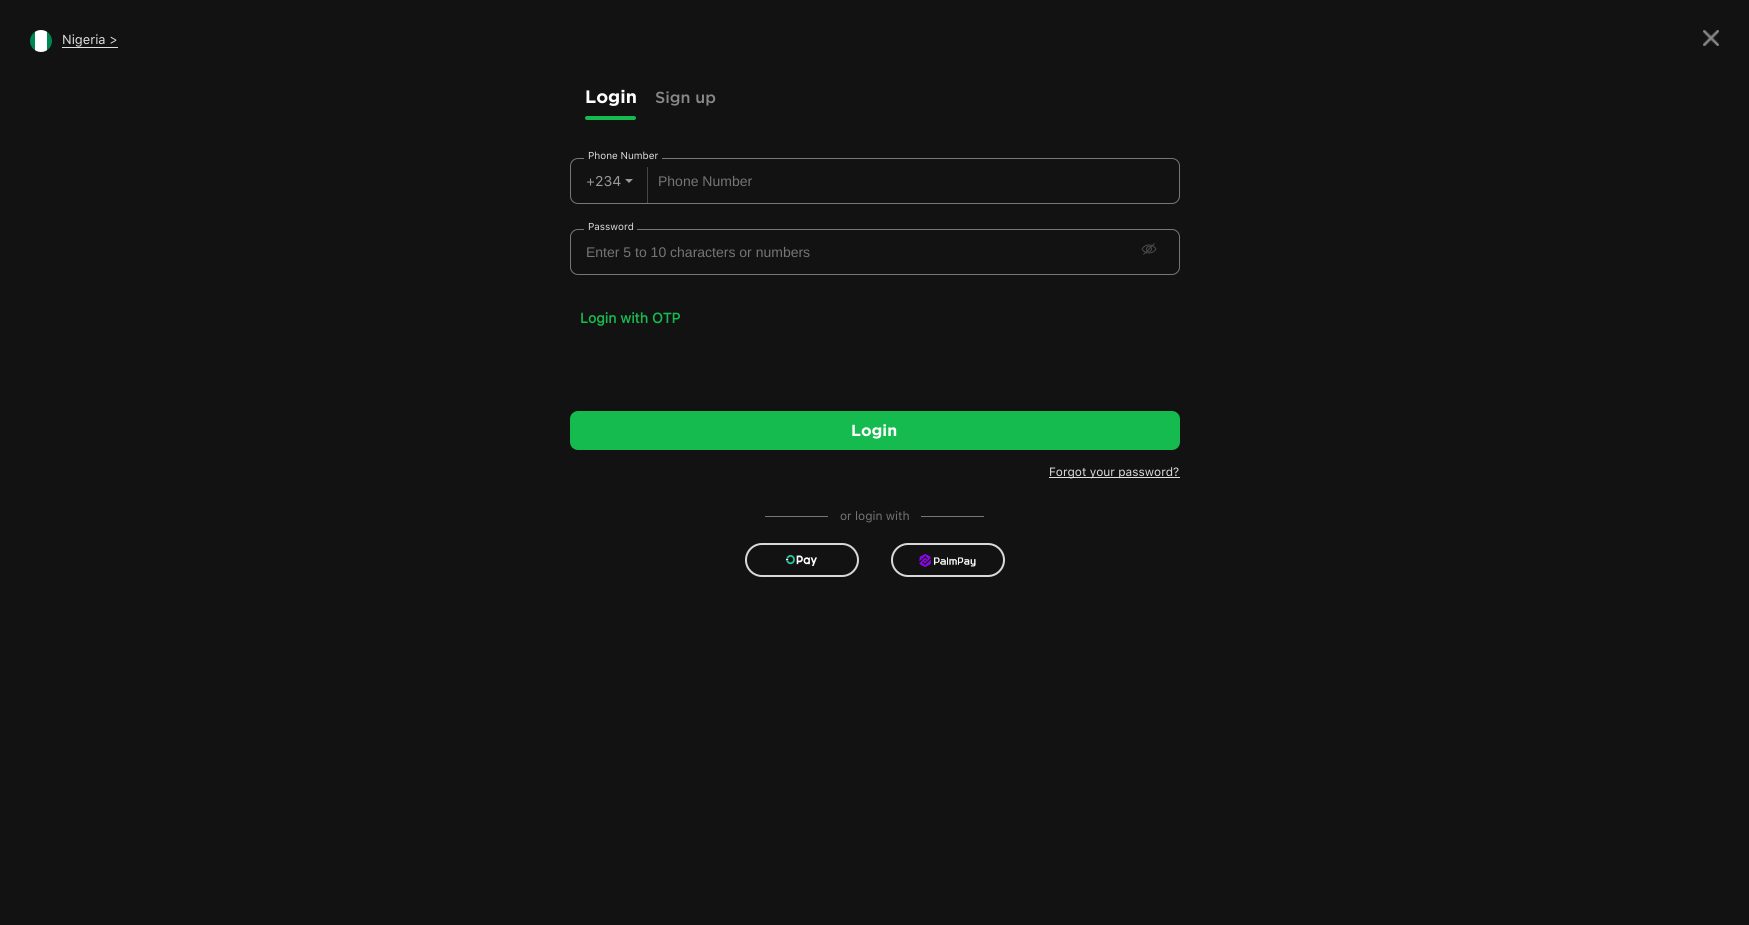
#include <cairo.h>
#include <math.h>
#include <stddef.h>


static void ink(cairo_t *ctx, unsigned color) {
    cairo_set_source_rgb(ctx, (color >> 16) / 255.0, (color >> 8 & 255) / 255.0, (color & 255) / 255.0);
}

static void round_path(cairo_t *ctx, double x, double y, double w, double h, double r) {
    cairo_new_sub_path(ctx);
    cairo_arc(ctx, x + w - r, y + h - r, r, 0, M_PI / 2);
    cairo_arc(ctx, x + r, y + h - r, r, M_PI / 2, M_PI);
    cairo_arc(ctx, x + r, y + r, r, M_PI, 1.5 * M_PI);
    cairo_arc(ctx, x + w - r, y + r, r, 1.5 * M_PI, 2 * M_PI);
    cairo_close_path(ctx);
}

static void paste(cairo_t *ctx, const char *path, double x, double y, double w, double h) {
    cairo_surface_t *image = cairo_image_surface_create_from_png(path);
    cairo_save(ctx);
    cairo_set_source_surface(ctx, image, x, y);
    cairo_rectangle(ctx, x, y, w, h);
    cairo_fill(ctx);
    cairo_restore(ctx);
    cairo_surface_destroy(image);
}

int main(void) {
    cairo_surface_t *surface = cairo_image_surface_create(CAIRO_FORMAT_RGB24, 1749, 925);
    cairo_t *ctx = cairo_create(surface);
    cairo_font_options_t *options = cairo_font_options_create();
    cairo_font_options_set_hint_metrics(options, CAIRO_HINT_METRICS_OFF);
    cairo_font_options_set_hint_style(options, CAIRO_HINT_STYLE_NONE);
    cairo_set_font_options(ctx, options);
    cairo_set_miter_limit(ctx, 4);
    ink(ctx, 0x121212);
    cairo_paint(ctx);
    paste(ctx, "media/1.png", 30, 30, 22, 22);
    cairo_select_font_face(ctx, "SF Pro Text", CAIRO_FONT_SLANT_NORMAL, CAIRO_FONT_WEIGHT_NORMAL);
    cairo_set_font_size(ctx, 13);
    ink(ctx, 0xDFDFDF);
    cairo_move_to(ctx, 62, 44);
    cairo_show_text(ctx, "Nigeria >");
    cairo_rectangle(ctx, 62, 47, 56, 1);
    cairo_fill(ctx);
    paste(ctx, "media/2.png", 1703, 30, 16, 16);
    cairo_select_font_face(ctx, "Gotham", CAIRO_FONT_SLANT_NORMAL, CAIRO_FONT_WEIGHT_BOLD);
    cairo_set_font_size(ctx, 18);
    ink(ctx, 0xFFFFFF);
    cairo_move_to(ctx, 585, 103);
    cairo_show_text(ctx, "Login");
    ink(ctx, 0x16BB50);
    round_path(ctx, 585, 116, 51, 4, 2);
    cairo_fill(ctx);
    cairo_select_font_face(ctx, "Gotham Medium", CAIRO_FONT_SLANT_NORMAL, CAIRO_FONT_WEIGHT_NORMAL);
    cairo_set_font_size(ctx, 16);
    ink(ctx, 0x898989);
    cairo_move_to(ctx, 655, 103);
    cairo_show_text(ctx, "Sign up");
    round_path(ctx, 570.5, 158.5, 609, 45, 7.5);
    ink(ctx, 0x777777);
    cairo_set_line_width(ctx, 1);
    cairo_stroke(ctx);
    ink(ctx, 0x454545);
    cairo_rectangle(ctx, 647, 159, 1, 44);
    cairo_fill(ctx);
    ink(ctx, 0x121212);
    cairo_rectangle(ctx, 584, 158, 78, 9);
    cairo_fill(ctx);
    cairo_select_font_face(ctx, "SF Pro Text", CAIRO_FONT_SLANT_NORMAL, CAIRO_FONT_WEIGHT_NORMAL);
    cairo_set_font_size(ctx, 10);
    ink(ctx, 0xDFDFDF);
    cairo_move_to(ctx, 588, 159);
    cairo_show_text(ctx, "Phone Number");
    cairo_set_font_size(ctx, 14);
    ink(ctx, 0x9C9C9C);
    cairo_move_to(ctx, 586, 186);
    cairo_show_text(ctx, "+234");
    ink(ctx, 0x9A9A9A);
    cairo_new_path(ctx);
    cairo_move_to(ctx, 625, 179);
    cairo_line_to(ctx, 633, 179);
    cairo_line_to(ctx, 629, 183);
    cairo_close_path(ctx);
    cairo_fill(ctx);
    cairo_select_font_face(ctx, "Liberation Sans", CAIRO_FONT_SLANT_NORMAL, CAIRO_FONT_WEIGHT_NORMAL);
    ink(ctx, 0x757575);
    cairo_move_to(ctx, 658, 186);
    cairo_show_text(ctx, "Phone Number");
    round_path(ctx, 570.5, 229.5, 609, 45, 7.5);
    ink(ctx, 0x777777);
    cairo_stroke(ctx);
    ink(ctx, 0x121212);
    cairo_rectangle(ctx, 584, 229, 53, 1);
    cairo_fill(ctx);
    cairo_select_font_face(ctx, "SF Pro Text", CAIRO_FONT_SLANT_NORMAL, CAIRO_FONT_WEIGHT_NORMAL);
    cairo_set_font_size(ctx, 10);
    ink(ctx, 0xDFDFDF);
    cairo_move_to(ctx, 588, 230);
    cairo_show_text(ctx, "Password");
    cairo_select_font_face(ctx, "Liberation Sans", CAIRO_FONT_SLANT_NORMAL, CAIRO_FONT_WEIGHT_NORMAL);
    cairo_set_font_size(ctx, 14);
    ink(ctx, 0x757575);
    cairo_move_to(ctx, 586, 257);
    cairo_show_text(ctx, "Enter 5 to 10 characters or numbers");
    paste(ctx, "media/3.png", 1141, 243, 16, 12);
    cairo_select_font_face(ctx, "SF Pro Text", CAIRO_FONT_SLANT_NORMAL, CAIRO_FONT_WEIGHT_BOLD);
    ink(ctx, 0x16BB50);
    cairo_move_to(ctx, 580, 323);
    cairo_show_text(ctx, "Login with OTP");
    round_path(ctx, 570, 411, 610, 39, 8);
    cairo_fill(ctx);
    cairo_select_font_face(ctx, "Gotham", CAIRO_FONT_SLANT_NORMAL, CAIRO_FONT_WEIGHT_BOLD);
    cairo_set_font_size(ctx, 16);
    ink(ctx, 0xFFFFFF);
    cairo_move_to(ctx, 851, 436);
    cairo_show_text(ctx, "Login");
    ink(ctx, 0xDFDFDF);
    cairo_rectangle(ctx, 1049, 477, 131, 1);
    cairo_fill(ctx);
    cairo_select_font_face(ctx, "SF Pro Text", CAIRO_FONT_SLANT_NORMAL, CAIRO_FONT_WEIGHT_NORMAL);
    cairo_set_font_size(ctx, 12);
    cairo_move_to(ctx, 1049, 476);
    cairo_show_text(ctx, "Forgot your password?");
    ink(ctx, 0x757575);
    cairo_rectangle(ctx, 765, 516, 63, 1);
    cairo_fill(ctx);
    cairo_move_to(ctx, 840, 520);
    cairo_show_text(ctx, "or login with");
    cairo_rectangle(ctx, 921, 516, 63, 1);
    cairo_fill(ctx);
    round_path(ctx, 746, 544, 112, 32, 16);
    ink(ctx, 0xD9D9D9);
    cairo_set_line_width(ctx, 2);
    cairo_stroke(ctx);
    paste(ctx, "media/4.png", 786, 555, 31, 11);
    round_path(ctx, 892, 544, 112, 32, 16);
    cairo_stroke(ctx);
    paste(ctx, "media/5.png", 919, 554, 57, 13);
    cairo_surface_write_to_png(surface, "image.png");
    cairo_font_options_destroy(options);
    cairo_destroy(ctx);
    cairo_surface_destroy(surface);
    return 0;
}
